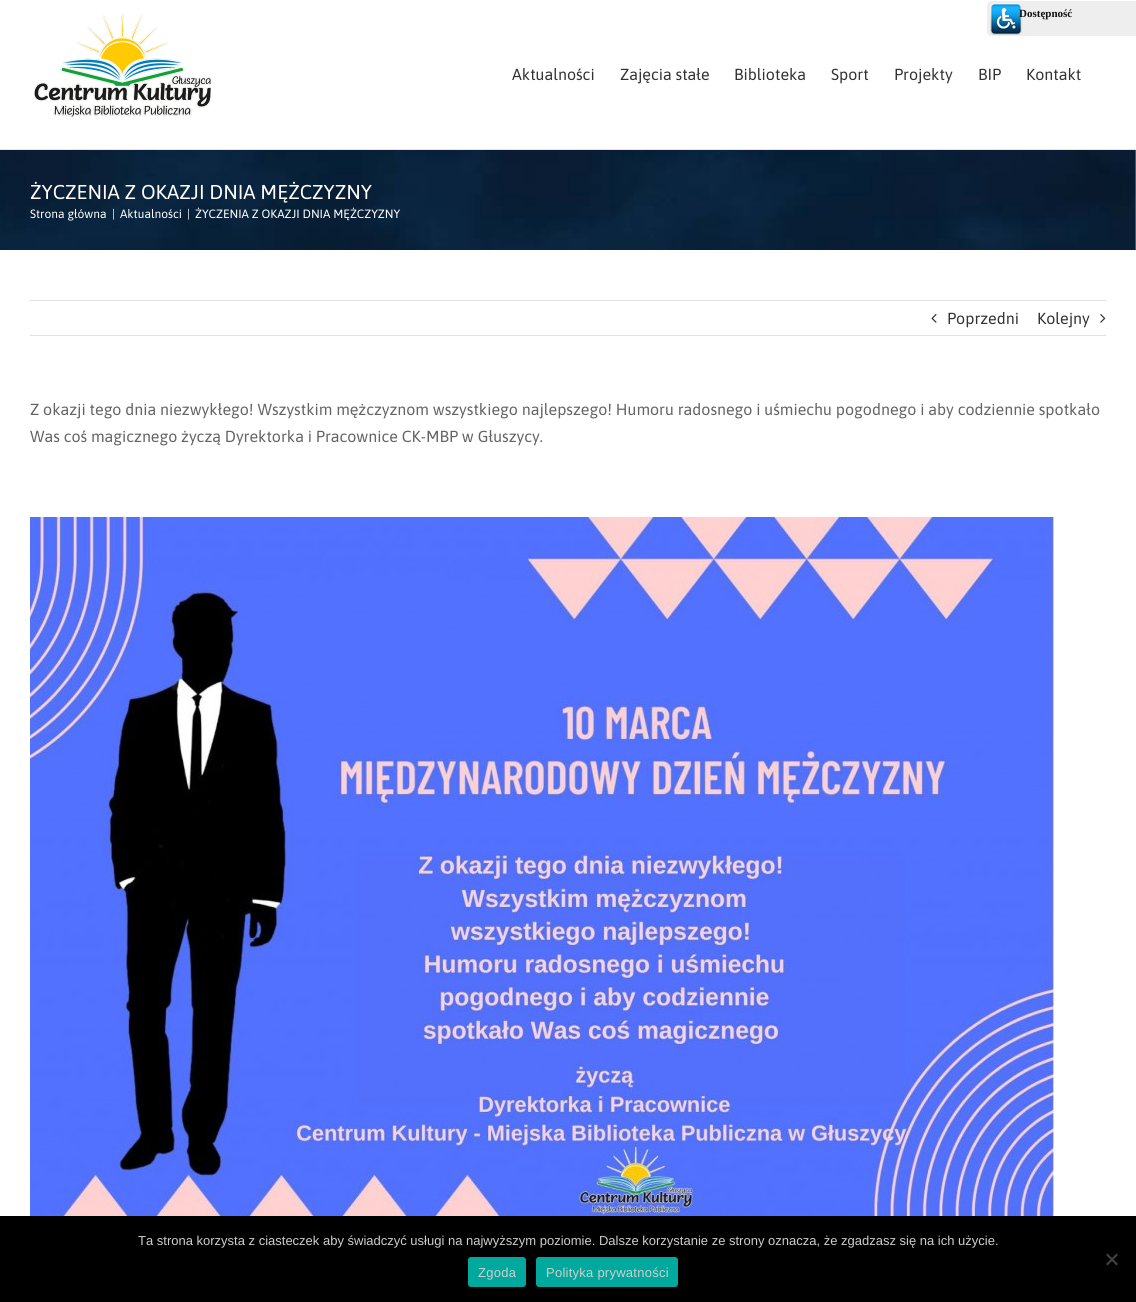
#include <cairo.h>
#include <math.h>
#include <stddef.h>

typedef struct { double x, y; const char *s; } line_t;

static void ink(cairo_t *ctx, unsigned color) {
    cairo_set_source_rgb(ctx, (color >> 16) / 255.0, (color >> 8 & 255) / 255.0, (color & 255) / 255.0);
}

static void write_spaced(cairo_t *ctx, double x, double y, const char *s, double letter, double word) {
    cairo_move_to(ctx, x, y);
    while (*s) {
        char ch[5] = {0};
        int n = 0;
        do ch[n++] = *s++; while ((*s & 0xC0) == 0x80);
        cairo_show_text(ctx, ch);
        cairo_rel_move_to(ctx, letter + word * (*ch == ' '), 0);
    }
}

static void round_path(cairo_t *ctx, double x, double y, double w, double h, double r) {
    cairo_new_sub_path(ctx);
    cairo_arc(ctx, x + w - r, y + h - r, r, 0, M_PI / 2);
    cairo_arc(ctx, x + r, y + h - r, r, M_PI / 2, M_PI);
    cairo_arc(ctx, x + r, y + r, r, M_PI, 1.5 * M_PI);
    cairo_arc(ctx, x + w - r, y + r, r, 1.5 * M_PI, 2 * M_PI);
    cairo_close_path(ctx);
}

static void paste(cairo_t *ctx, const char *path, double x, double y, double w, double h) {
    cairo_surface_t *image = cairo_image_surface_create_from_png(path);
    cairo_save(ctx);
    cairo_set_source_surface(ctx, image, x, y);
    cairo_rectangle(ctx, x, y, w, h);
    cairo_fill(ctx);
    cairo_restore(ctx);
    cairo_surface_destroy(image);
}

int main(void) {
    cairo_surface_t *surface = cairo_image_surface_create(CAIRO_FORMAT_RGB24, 1136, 1302);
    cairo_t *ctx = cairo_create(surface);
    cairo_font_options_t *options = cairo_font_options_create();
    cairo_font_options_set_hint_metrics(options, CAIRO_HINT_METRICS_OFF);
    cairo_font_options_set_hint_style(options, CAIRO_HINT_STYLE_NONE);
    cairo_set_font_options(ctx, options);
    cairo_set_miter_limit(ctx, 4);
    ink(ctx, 0xFFFFFF);
    cairo_paint(ctx);
    ink(ctx, 0xEEEEEE);
    cairo_new_path(ctx);
    cairo_move_to(ctx, 992, 1);
    cairo_line_to(ctx, 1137, 1);
    cairo_line_to(ctx, 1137, 36);
    cairo_line_to(ctx, 992, 36);
    cairo_curve_to(ctx, 989, 36, 987, 34, 987, 31);
    cairo_line_to(ctx, 987, 6);
    cairo_curve_to(ctx, 987, 3, 989, 1, 992, 1);
    cairo_close_path(ctx);
    cairo_fill(ctx);
    paste(ctx, "media/1.png", 990, 3, 32, 32);
    cairo_select_font_face(ctx, "Liberation Serif", CAIRO_FONT_SLANT_NORMAL, CAIRO_FONT_WEIGHT_BOLD);
    cairo_set_font_size(ctx, 11);
    ink(ctx, 0x111111);
    cairo_move_to(ctx, 1019, 17);
    cairo_show_text(ctx, "Dostępność");
    ink(ctx, 0xE5E5E5);
    cairo_rectangle(ctx, 0, 149, 1136, 1);
    cairo_fill(ctx);
    paste(ctx, "media/2.png", 34, 13, 177, 105);
    cairo_select_font_face(ctx, "Asap", CAIRO_FONT_SLANT_NORMAL, CAIRO_FONT_WEIGHT_NORMAL);
    cairo_set_font_size(ctx, 16);
    ink(ctx, 0x333333);
    {
        static const line_t items[] = {
            {512, 80, "Aktualności"},
            {620, 80, "Zajęcia stałe"},
            {734, 80, "Biblioteka"},
            {831, 80, "Sport"},
            {894, 80, "Projekty"},
            {978, 80, "BIP"},
            {1026, 80, "Kontakt"},
        };
        for (size_t i = 0; i < sizeof items / sizeof *items; i++) {
            cairo_move_to(ctx, items[i].x, items[i].y);
            cairo_show_text(ctx, items[i].s);
        }
    }
    paste(ctx, "media/3.png", 0, 150, 1136, 100);
    cairo_set_font_size(ctx, 20);
    ink(ctx, 0xFFFFFF);
    cairo_move_to(ctx, 30, 199);
    cairo_show_text(ctx, "ŻYCZENIA Z OKAZJI DNIA MĘŻCZYZNY");
    cairo_set_font_size(ctx, 12);
    {
        static const line_t items[] = {
            {30, 218, "Strona główna"},
            {112, 218, "|"},
            {120, 218, "Aktualności"},
            {187, 218, "|"},
            {195, 218, "ŻYCZENIA Z OKAZJI DNIA MĘŻCZYZNY"},
        };
        for (size_t i = 0; i < sizeof items / sizeof *items; i++) {
            cairo_move_to(ctx, items[i].x, items[i].y);
            cairo_show_text(ctx, items[i].s);
        }
    }
    ink(ctx, 0xE0DEDE);
    cairo_rectangle(ctx, 30, 300, 1076, 1);
    cairo_fill(ctx);
    cairo_rectangle(ctx, 30, 335, 1076, 1);
    cairo_fill(ctx);
    paste(ctx, "media/4.png", 931, 314, 6, 9);
    cairo_set_font_size(ctx, 16);
    ink(ctx, 0x333333);
    cairo_move_to(ctx, 947, 324);
    cairo_show_text(ctx, "Poprzedni");
    cairo_move_to(ctx, 1037, 324);
    cairo_show_text(ctx, "Kolejny");
    paste(ctx, "media/5.png", 1100, 314, 6, 9);
    ink(ctx, 0x646464);
    cairo_move_to(ctx, 30, 415);
    cairo_show_text(ctx, "Z okazji tego dnia niezwykłego! Wszystkim mężczyznom wszystkiego najlepszego! Humoru radosnego i uśmiechu pogodnego i aby codziennie spotkało");
    cairo_move_to(ctx, 30, 442);
    cairo_show_text(ctx, "Was coś magicznego życzą Dyrektorka i Pracownice CK-MBP w Głuszycy.");
    paste(ctx, "media/6.png", 30, 517, 1024, 699);
    ink(ctx, 0x000000);
    cairo_rectangle(ctx, 0, 1216, 1136, 86);
    cairo_fill(ctx);
    cairo_select_font_face(ctx, "Liberation Sans", CAIRO_FONT_SLANT_NORMAL, CAIRO_FONT_WEIGHT_NORMAL);
    cairo_set_font_size(ctx, 13);
    ink(ctx, 0xCECECE);
    cairo_move_to(ctx, 138, 1245);
    cairo_show_text(ctx, "Ta strona korzysta z ciasteczek aby świadczyć usługi na najwyższym poziomie. Dalsze korzystanie ze strony oznacza, że zgadzasz się na ich użycie.");
    ink(ctx, 0x404040);
    cairo_new_path(ctx);
    cairo_move_to(ctx, 1116.5, 1253.5);
    cairo_line_to(ctx, 1118, 1255);
    cairo_line_to(ctx, 1107.5, 1265.5);
    cairo_line_to(ctx, 1106, 1264);
    cairo_close_path(ctx);
    cairo_fill(ctx);
    cairo_new_path(ctx);
    cairo_move_to(ctx, 1106, 1255);
    cairo_line_to(ctx, 1107.5, 1253.5);
    cairo_line_to(ctx, 1118, 1264);
    cairo_line_to(ctx, 1116.5, 1265.5);
    cairo_close_path(ctx);
    cairo_fill(ctx);
    ink(ctx, 0x00A99D);
    round_path(ctx, 468, 1257, 58, 30, 3);
    cairo_fill(ctx);
    ink(ctx, 0xCECECE);
    write_spaced(ctx, 478, 1277, "Zgoda", 0.25, 0);
    ink(ctx, 0x00A99D);
    round_path(ctx, 536, 1257, 142, 30, 3);
    cairo_fill(ctx);
    ink(ctx, 0xCECECE);
    write_spaced(ctx, 546, 1277, "Polityka prywatności", 0.25, 0);
    cairo_surface_write_to_png(surface, "image.png");
    cairo_font_options_destroy(options);
    cairo_destroy(ctx);
    cairo_surface_destroy(surface);
    return 0;
}
